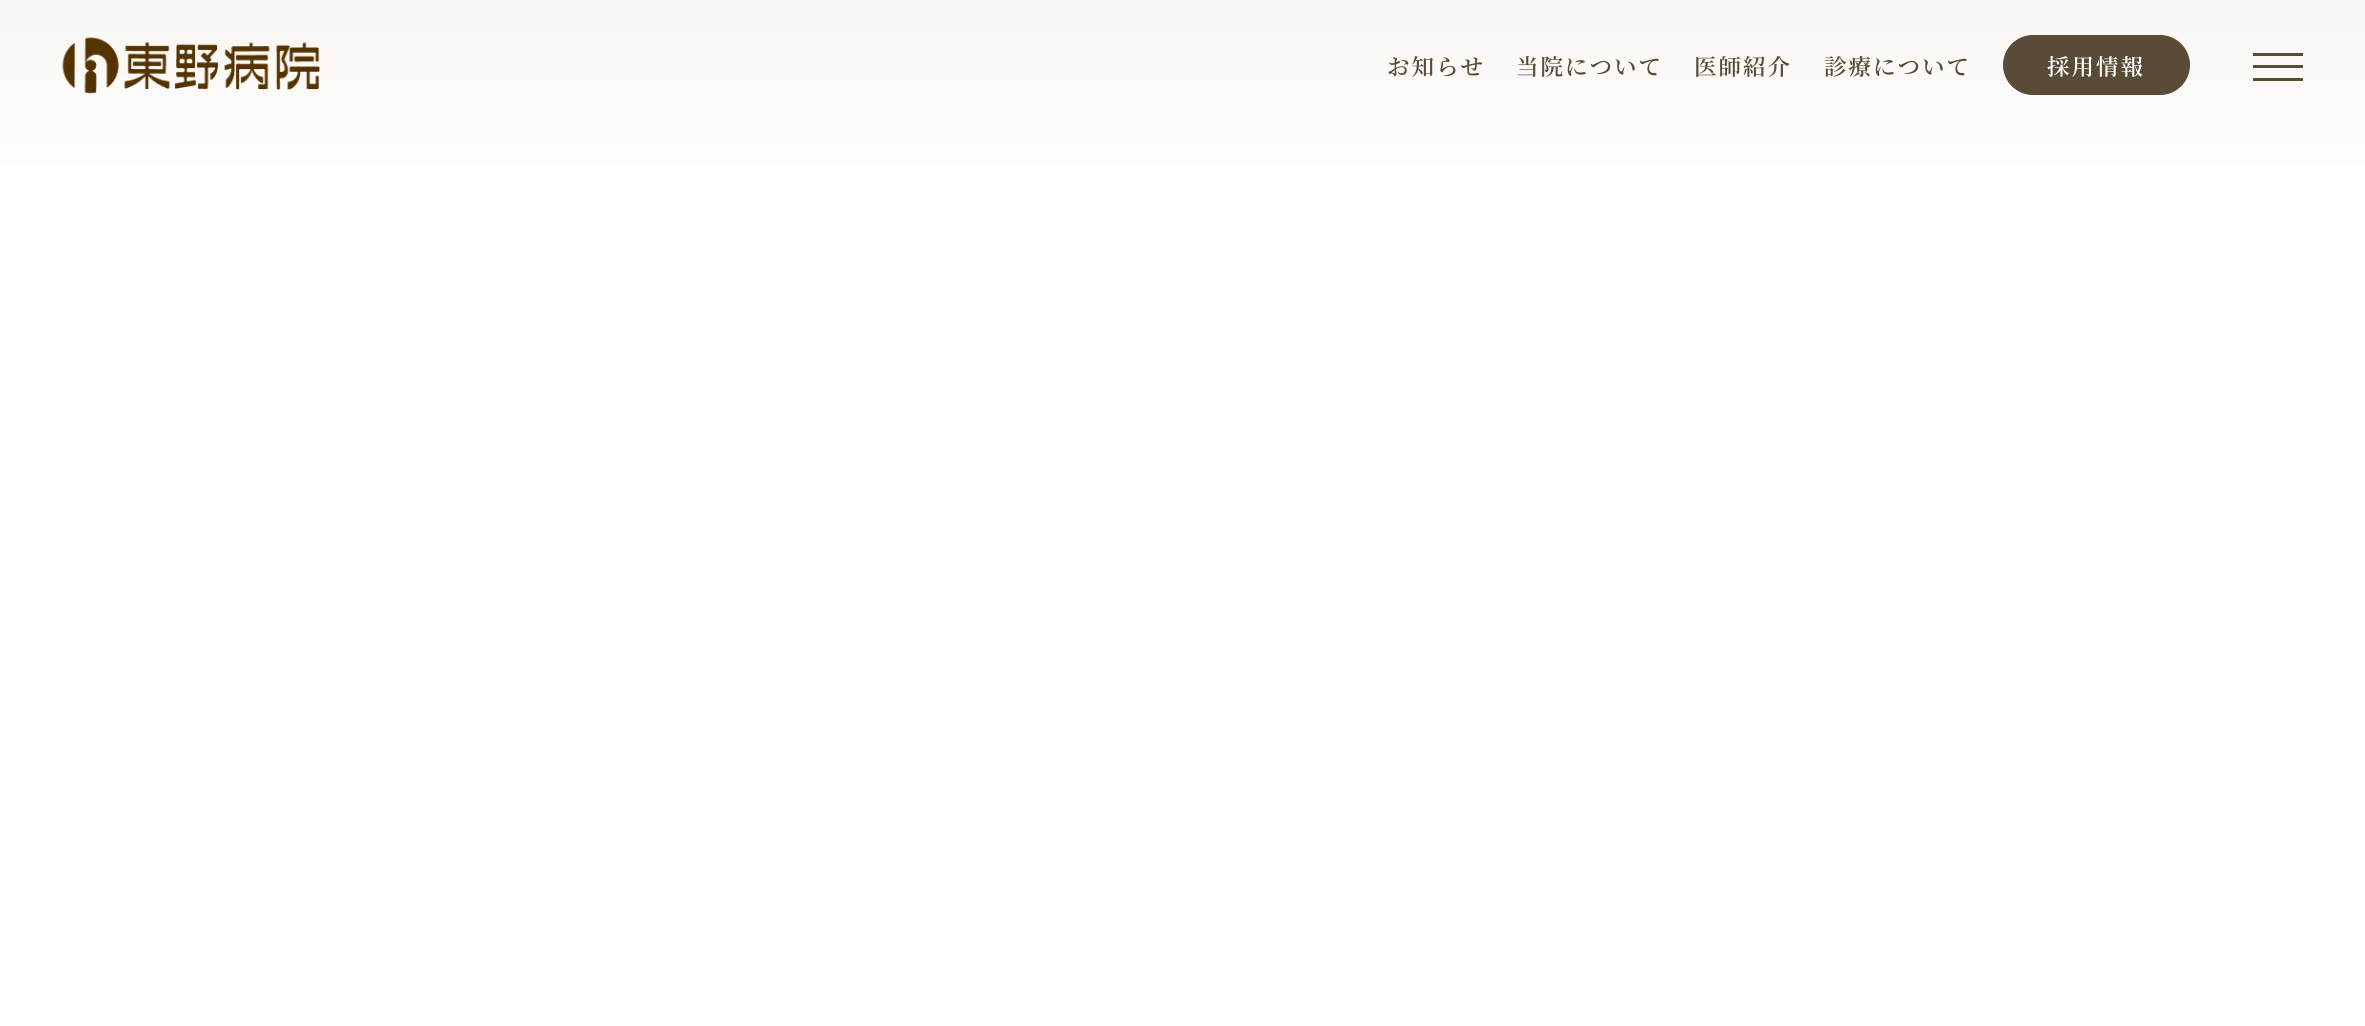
#include <cairo.h>
#include <math.h>
#include <stddef.h>

typedef struct { double x, y; const char *s; } line_t;
typedef struct { double x, y, w, h; unsigned color; } box_t;

static void ink(cairo_t *ctx, unsigned color) {
    cairo_set_source_rgb(ctx, (color >> 16) / 255.0, (color >> 8 & 255) / 255.0, (color & 255) / 255.0);
}

static void write_spaced(cairo_t *ctx, double x, double y, const char *s, double letter, double word) {
    cairo_move_to(ctx, x, y);
    while (*s) {
        char ch[5] = {0};
        int n = 0;
        do ch[n++] = *s++; while ((*s & 0xC0) == 0x80);
        cairo_show_text(ctx, ch);
        cairo_rel_move_to(ctx, letter + word * (*ch == ' '), 0);
    }
}

static void round_path(cairo_t *ctx, double x, double y, double w, double h, double r) {
    cairo_new_sub_path(ctx);
    cairo_arc(ctx, x + w - r, y + h - r, r, 0, M_PI / 2);
    cairo_arc(ctx, x + r, y + h - r, r, M_PI / 2, M_PI);
    cairo_arc(ctx, x + r, y + r, r, M_PI, 1.5 * M_PI);
    cairo_arc(ctx, x + w - r, y + r, r, 1.5 * M_PI, 2 * M_PI);
    cairo_close_path(ctx);
}

static void paste(cairo_t *ctx, const char *path, double x, double y, double w, double h) {
    cairo_surface_t *image = cairo_image_surface_create_from_png(path);
    cairo_save(ctx);
    cairo_set_source_surface(ctx, image, x, y);
    cairo_rectangle(ctx, x, y, w, h);
    cairo_fill(ctx);
    cairo_restore(ctx);
    cairo_surface_destroy(image);
}

int main(void) {
    cairo_surface_t *surface = cairo_image_surface_create(CAIRO_FORMAT_RGB24, 2365, 1026);
    cairo_t *ctx = cairo_create(surface);
    cairo_font_options_t *options = cairo_font_options_create();
    cairo_font_options_set_hint_metrics(options, CAIRO_HINT_METRICS_OFF);
    cairo_font_options_set_hint_style(options, CAIRO_HINT_STYLE_NONE);
    cairo_set_font_options(ctx, options);
    cairo_set_miter_limit(ctx, 4);
    cairo_pattern_t *gradient;
    ink(ctx, 0xFFFFFF);
    cairo_paint(ctx);
    gradient = cairo_pattern_create_linear(1183, 0, 1183, 200);
    cairo_pattern_add_color_stop_rgba(gradient, 0, 0.973, 0.965, 0.949, 1);
    cairo_pattern_add_color_stop_rgba(gradient, 1, 1, 1, 1, 1);
    cairo_set_source(ctx, gradient);
    cairo_pattern_destroy(gradient);
    cairo_rectangle(ctx, 0, 0, 2365, 162);
    cairo_fill(ctx);
    paste(ctx, "media/1.png", 62, 37, 258, 57);
    cairo_select_font_face(ctx, "Noto Serif JP SemiBold", CAIRO_FONT_SLANT_NORMAL, CAIRO_FONT_WEIGHT_NORMAL);
    cairo_set_font_size(ctx, 22.5);
    ink(ctx, 0x594B36);
    {
        static const line_t items[] = {
            {1387, 75, "お知らせ"},
            {1516, 75, "当院について"},
            {1694, 75, "医師紹介"},
            {1824, 75, "診療について"},
        };
        for (size_t i = 0; i < sizeof items / sizeof *items; i++) {
            write_spaced(ctx, items[i].x, items[i].y, items[i].s, 2, 0);
        }
    }
    round_path(ctx, 2003.5, 35.5, 186, 59, 29.5);
    cairo_fill_preserve(ctx);
    cairo_set_line_width(ctx, 1);
    cairo_stroke(ctx);
    ink(ctx, 0xFFFFFF);
    write_spaced(ctx, 2047, 75, "採用情報", 2, 0);
    {
        static const box_t items[] = {
            {2253, 53, 50, 3, 0x594B36},
            {2253, 65, 50, 3, 0x594B36},
            {2253, 78, 50, 3, 0x594B36},
        };
        for (size_t i = 0; i < sizeof items / sizeof *items; i++) {
            ink(ctx, items[i].color);
            cairo_rectangle(ctx, items[i].x, items[i].y, items[i].w, items[i].h);
            cairo_fill(ctx);
        }
    }
    cairo_surface_write_to_png(surface, "image.png");
    cairo_font_options_destroy(options);
    cairo_destroy(ctx);
    cairo_surface_destroy(surface);
    return 0;
}
